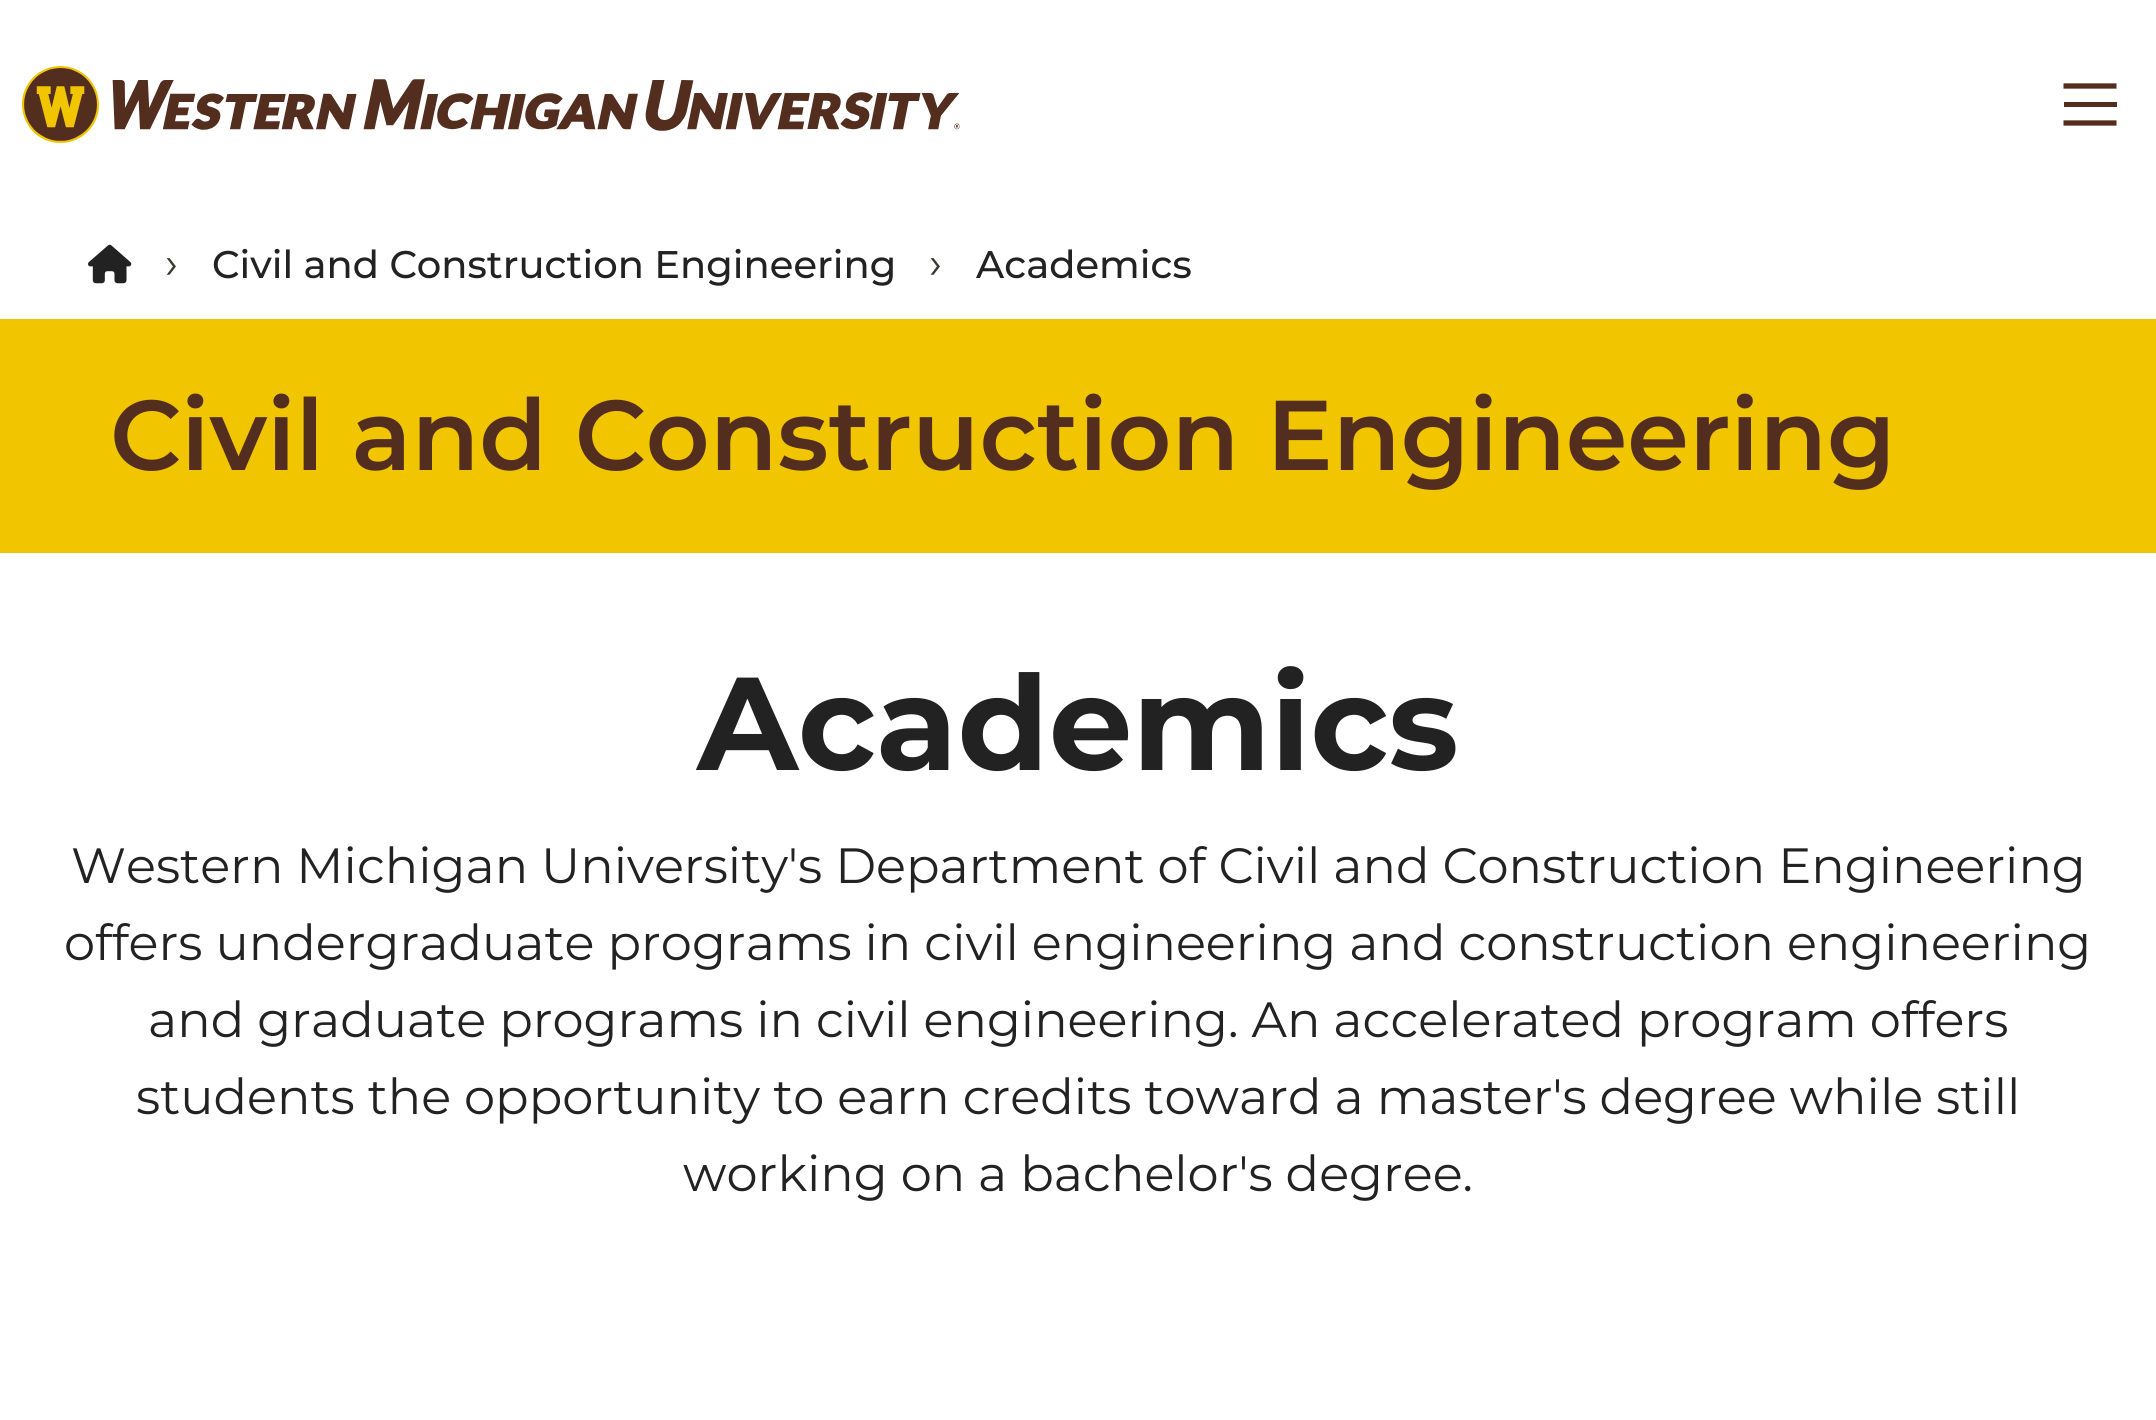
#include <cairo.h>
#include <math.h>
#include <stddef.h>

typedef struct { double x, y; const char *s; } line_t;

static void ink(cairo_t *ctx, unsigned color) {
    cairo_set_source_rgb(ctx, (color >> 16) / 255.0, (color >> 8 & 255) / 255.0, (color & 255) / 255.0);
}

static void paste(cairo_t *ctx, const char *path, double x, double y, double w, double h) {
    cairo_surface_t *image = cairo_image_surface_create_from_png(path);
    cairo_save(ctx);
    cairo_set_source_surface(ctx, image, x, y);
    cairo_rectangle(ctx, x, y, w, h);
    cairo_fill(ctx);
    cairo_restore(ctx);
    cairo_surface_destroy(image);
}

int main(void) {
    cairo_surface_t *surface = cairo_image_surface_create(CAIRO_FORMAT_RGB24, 2156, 1420);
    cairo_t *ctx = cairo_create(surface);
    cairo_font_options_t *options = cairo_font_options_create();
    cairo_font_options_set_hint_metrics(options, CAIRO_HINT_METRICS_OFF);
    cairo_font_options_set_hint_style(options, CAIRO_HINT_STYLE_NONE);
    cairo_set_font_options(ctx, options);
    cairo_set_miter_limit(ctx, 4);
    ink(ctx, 0xFFFFFF);
    cairo_paint(ctx);
    paste(ctx, "media/1.png", 22, 66, 938, 77);
    cairo_new_path(ctx);
    cairo_move_to(ctx, 2063.5, 86);
    cairo_line_to(ctx, 2116.5, 86);
    ink(ctx, 0x532E1F);
    cairo_set_line_width(ctx, 5.3);
    cairo_stroke(ctx);
    cairo_rectangle(ctx, 2064, 102, 53, 5);
    cairo_fill(ctx);
    cairo_new_path(ctx);
    cairo_move_to(ctx, 2063.5, 123);
    cairo_line_to(ctx, 2116.5, 123);
    cairo_stroke(ctx);
    paste(ctx, "media/2.png", 88, 244, 44, 40);
    cairo_select_font_face(ctx, "Montserrat", CAIRO_FONT_SLANT_NORMAL, CAIRO_FONT_WEIGHT_NORMAL);
    cairo_set_font_size(ctx, 44);
    ink(ctx, 0x3C3734);
    cairo_move_to(ctx, 165, 278);
    cairo_show_text(ctx, "›");
    cairo_select_font_face(ctx, "Montserrat Medium", CAIRO_FONT_SLANT_NORMAL, CAIRO_FONT_WEIGHT_NORMAL);
    cairo_set_font_size(ctx, 38.5);
    ink(ctx, 0x222222);
    cairo_move_to(ctx, 212, 278);
    cairo_show_text(ctx, "Civil and Construction Engineering");
    cairo_select_font_face(ctx, "Montserrat", CAIRO_FONT_SLANT_NORMAL, CAIRO_FONT_WEIGHT_NORMAL);
    cairo_set_font_size(ctx, 44);
    ink(ctx, 0x3C3734);
    cairo_move_to(ctx, 929, 278);
    cairo_show_text(ctx, "›");
    cairo_select_font_face(ctx, "Montserrat Medium", CAIRO_FONT_SLANT_NORMAL, CAIRO_FONT_WEIGHT_NORMAL);
    cairo_set_font_size(ctx, 38.5);
    ink(ctx, 0x222222);
    cairo_move_to(ctx, 976, 278);
    cairo_show_text(ctx, "Academics");
    ink(ctx, 0xF1C500);
    cairo_rectangle(ctx, 0, 319, 2156, 234);
    cairo_fill(ctx);
    cairo_select_font_face(ctx, "Montserrat SemiBold", CAIRO_FONT_SLANT_NORMAL, CAIRO_FONT_WEIGHT_NORMAL);
    cairo_set_font_size(ctx, 99);
    ink(ctx, 0x532E1F);
    cairo_move_to(ctx, 110, 470);
    cairo_show_text(ctx, "Civil and Construction Engineering");
    cairo_select_font_face(ctx, "Montserrat", CAIRO_FONT_SLANT_NORMAL, CAIRO_FONT_WEIGHT_BOLD);
    cairo_set_font_size(ctx, 132);
    ink(ctx, 0x222222);
    cairo_move_to(ctx, 697, 770);
    cairo_show_text(ctx, "Academics");
    cairo_select_font_face(ctx, "Montserrat", CAIRO_FONT_SLANT_NORMAL, CAIRO_FONT_WEIGHT_NORMAL);
    cairo_set_font_size(ctx, 49.5);
    {
        static const line_t items[] = {
            {71, 883, "Western Michigan University's Department of Civil and Construction Engineering"},
            {64, 960, "offers undergraduate programs in civil engineering and construction engineering"},
            {148, 1037, "and graduate programs in civil engineering. An accelerated program offers"},
            {136, 1114, "students the opportunity to earn credits toward a master's degree while still"},
            {683, 1191, "working on a bachelor's degree."},
        };
        for (size_t i = 0; i < sizeof items / sizeof *items; i++) {
            cairo_move_to(ctx, items[i].x, items[i].y);
            cairo_show_text(ctx, items[i].s);
        }
    }
    cairo_surface_write_to_png(surface, "image.png");
    cairo_font_options_destroy(options);
    cairo_destroy(ctx);
    cairo_surface_destroy(surface);
    return 0;
}
